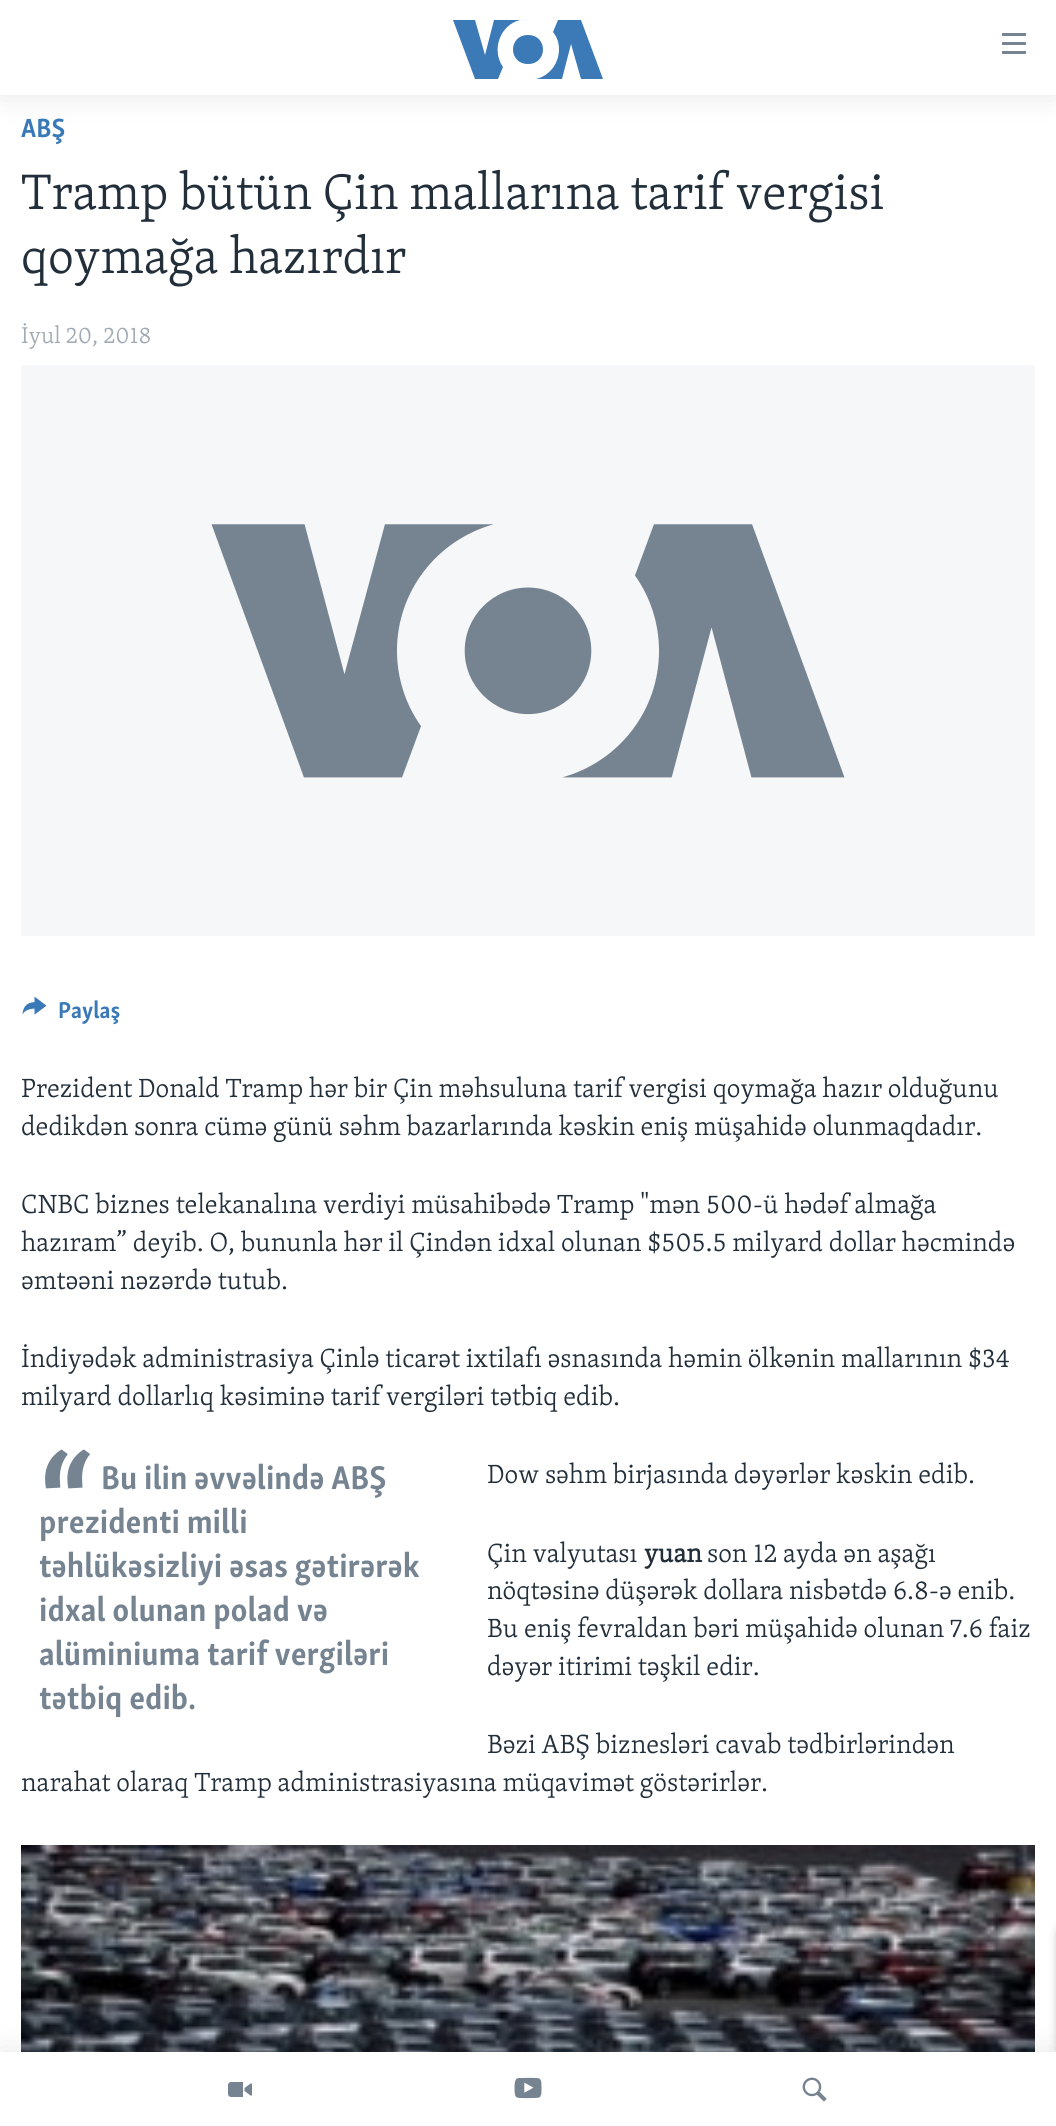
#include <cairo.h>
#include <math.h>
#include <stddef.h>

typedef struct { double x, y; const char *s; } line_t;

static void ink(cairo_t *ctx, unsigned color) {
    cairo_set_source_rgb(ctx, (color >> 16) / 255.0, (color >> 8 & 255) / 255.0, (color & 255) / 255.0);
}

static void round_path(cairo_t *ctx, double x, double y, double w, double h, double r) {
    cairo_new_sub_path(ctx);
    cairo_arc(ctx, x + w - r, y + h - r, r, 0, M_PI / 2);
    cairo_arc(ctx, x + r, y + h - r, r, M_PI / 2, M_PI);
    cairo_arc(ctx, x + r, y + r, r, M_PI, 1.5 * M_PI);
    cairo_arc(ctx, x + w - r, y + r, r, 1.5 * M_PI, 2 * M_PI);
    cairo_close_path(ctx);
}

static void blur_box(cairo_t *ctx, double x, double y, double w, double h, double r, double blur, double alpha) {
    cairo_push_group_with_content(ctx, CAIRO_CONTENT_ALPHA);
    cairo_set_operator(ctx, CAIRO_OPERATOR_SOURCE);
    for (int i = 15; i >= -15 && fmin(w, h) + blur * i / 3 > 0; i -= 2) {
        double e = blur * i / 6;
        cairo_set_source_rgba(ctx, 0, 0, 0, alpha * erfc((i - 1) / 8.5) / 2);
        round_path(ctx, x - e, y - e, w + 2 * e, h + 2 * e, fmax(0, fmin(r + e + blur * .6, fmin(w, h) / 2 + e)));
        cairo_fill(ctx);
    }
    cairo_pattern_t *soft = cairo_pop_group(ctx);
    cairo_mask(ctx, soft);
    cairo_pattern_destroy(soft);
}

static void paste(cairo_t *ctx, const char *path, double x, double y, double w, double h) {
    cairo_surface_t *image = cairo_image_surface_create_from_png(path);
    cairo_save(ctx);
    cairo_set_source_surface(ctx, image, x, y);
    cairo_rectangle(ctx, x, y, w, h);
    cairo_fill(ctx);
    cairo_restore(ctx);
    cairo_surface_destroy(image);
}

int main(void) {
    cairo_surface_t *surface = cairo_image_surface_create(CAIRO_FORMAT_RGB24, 1056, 2126);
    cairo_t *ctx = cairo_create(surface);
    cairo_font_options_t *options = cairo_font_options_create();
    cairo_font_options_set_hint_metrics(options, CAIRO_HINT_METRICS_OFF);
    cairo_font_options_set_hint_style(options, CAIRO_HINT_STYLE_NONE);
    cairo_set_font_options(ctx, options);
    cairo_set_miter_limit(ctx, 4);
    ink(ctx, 0xFFFFFF);
    cairo_paint(ctx);
    ink(ctx, 0x000000);
    blur_box(ctx, 0, 0, 1056, 95, 0, 15, 0.1);
    ink(ctx, 0xFFFFFF);
    cairo_rectangle(ctx, 0, 0, 1056, 95);
    cairo_fill(ctx);
    ink(ctx, 0x3B79B7);
    cairo_new_path(ctx);
    cairo_move_to(ctx, 503, 67);
    cairo_line_to(ctx, 498, 79);
    cairo_line_to(ctx, 475, 79);
    cairo_line_to(ctx, 453, 20);
    cairo_line_to(ctx, 475, 20);
    cairo_line_to(ctx, 485, 55);
    cairo_line_to(ctx, 494, 20);
    cairo_line_to(ctx, 520, 20);
    cairo_curve_to(ctx, 500, 25, 491, 50, 503, 67);
    cairo_close_path(ctx);
    cairo_move_to(ctx, 528, 35);
    cairo_curve_to(ctx, 508, 35, 508, 64, 528, 64);
    cairo_curve_to(ctx, 548, 64, 548, 35, 528, 35);
    cairo_close_path(ctx);
    cairo_move_to(ctx, 559, 49);
    cairo_curve_to(ctx, 559, 64, 549, 76, 536, 79);
    cairo_line_to(ctx, 562, 79);
    cairo_line_to(ctx, 571, 44);
    cairo_line_to(ctx, 581, 79);
    cairo_line_to(ctx, 603, 79);
    cairo_line_to(ctx, 581, 20);
    cairo_line_to(ctx, 558, 20);
    cairo_line_to(ctx, 553, 32);
    cairo_curve_to(ctx, 557, 37, 559, 43, 559, 49);
    cairo_close_path(ctx);
    cairo_fill(ctx);
    paste(ctx, "media/1.png", 1002, 33, 24, 21);
    paste(ctx, "media/7.png", 21, 1845, 1014, 207);
    ink(ctx, 0x000000);
    blur_box(ctx, 0, 2052, 1056, 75, 0, 15, 0.1);
    blur_box(ctx, 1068, 1931, 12, 121, 1.5, 7.5, 0.85);
    blur_box(ctx, 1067, 1931, 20, 121, 8, 7.5, 0.85);
    ink(ctx, 0xFFFFFF);
    cairo_rectangle(ctx, 0, 2052, 1056, 74);
    cairo_fill(ctx);
    paste(ctx, "media/2.png", 228, 2082, 24, 15);
    paste(ctx, "media/3.png", 514, 2077, 28, 22);
    paste(ctx, "media/4.png", 802, 2077, 25, 25);
    cairo_select_font_face(ctx, "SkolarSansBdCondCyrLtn", CAIRO_FONT_SLANT_NORMAL, CAIRO_FONT_WEIGHT_BOLD);
    cairo_set_font_size(ctx, 27);
    ink(ctx, 0x3A79B7);
    cairo_move_to(ctx, 21, 137);
    cairo_show_text(ctx, "ABŞ");
    cairo_select_font_face(ctx, "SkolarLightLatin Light", CAIRO_FONT_SLANT_NORMAL, CAIRO_FONT_WEIGHT_NORMAL);
    cairo_set_font_size(ctx, 51.25);
    ink(ctx, 0x222F3A);
    cairo_move_to(ctx, 21, 209);
    cairo_show_text(ctx, "Tramp bütün Çin mallarına tarif vergisi");
    cairo_move_to(ctx, 21, 273);
    cairo_show_text(ctx, "qoymağa hazırdır");
    cairo_set_font_size(ctx, 23.5);
    ink(ctx, 0xA1AAB4);
    cairo_move_to(ctx, 21, 343);
    cairo_show_text(ctx, "İyul 20, 2018");
    ink(ctx, 0xF6F7F8);
    cairo_rectangle(ctx, 21, 365, 1014, 571);
    cairo_fill(ctx);
    paste(ctx, "media/5.png", 211, 524, 634, 254);
    paste(ctx, "media/6.png", 22, 996, 25, 19);
    cairo_select_font_face(ctx, "SkolarSansBdCondCyrLtn", CAIRO_FONT_SLANT_NORMAL, CAIRO_FONT_WEIGHT_BOLD);
    ink(ctx, 0x3A79B7);
    cairo_move_to(ctx, 58, 1018);
    cairo_show_text(ctx, "Paylaş");
    cairo_select_font_face(ctx, "SkolarLightLatin Light", CAIRO_FONT_SLANT_NORMAL, CAIRO_FONT_WEIGHT_NORMAL);
    cairo_set_font_size(ctx, 27);
    ink(ctx, 0x222F3A);
    {
        static const line_t items[] = {
            {21, 1097, "Prezident Donald Tramp hər bir Çin məhsuluna tarif vergisi qoymağa hazır olduğunu"},
            {21, 1135, "dedikdən sonra cümə günü səhm bazarlarında kəskin eniş müşahidə olunmaqdadır."},
            {21, 1213, "CNBC biznes telekanalına verdiyi müsahibədə Tramp \"mən 500-ü hədəf almağa"},
            {21, 1251, "hazıram” deyib. O, bununla hər il Çindən idxal olunan $505.5 milyard dollar həcmində"},
            {21, 1289, "əmtəəni nəzərdə tutub."},
            {21, 1367, "İndiyədək administrasiya Çinlə ticarət ixtilafı əsnasında həmin ölkənin mallarının $34"},
            {21, 1405, "milyard dollarlıq kəsiminə tarif vergiləri tətbiq edib."},
        };
        for (size_t i = 0; i < sizeof items / sizeof *items; i++) {
            cairo_move_to(ctx, items[i].x, items[i].y);
            cairo_show_text(ctx, items[i].s);
        }
    }
    cairo_select_font_face(ctx, "SkolarSansBdCondCyrLtn", CAIRO_FONT_SLANT_NORMAL, CAIRO_FONT_WEIGHT_BOLD);
    cairo_set_font_size(ctx, 135);
    ink(ctx, 0x768492);
    cairo_move_to(ctx, 39, 1557);
    cairo_show_text(ctx, "“");
    cairo_set_font_size(ctx, 33.75);
    {
        static const line_t items[] = {
            {101, 1489, "Bu ilin əvvəlində ABŞ"},
            {39, 1533, "prezidenti milli"},
            {39, 1577, "təhlükəsizliyi əsas gətirərək"},
            {39, 1621, "idxal olunan polad və"},
            {39, 1665, "alüminiuma tarif vergiləri"},
            {39, 1709, "tətbiq edib."},
        };
        for (size_t i = 0; i < sizeof items / sizeof *items; i++) {
            cairo_move_to(ctx, items[i].x, items[i].y);
            cairo_show_text(ctx, items[i].s);
        }
    }
    cairo_select_font_face(ctx, "SkolarLightLatin Light", CAIRO_FONT_SLANT_NORMAL, CAIRO_FONT_WEIGHT_NORMAL);
    cairo_set_font_size(ctx, 27);
    ink(ctx, 0x222F3A);
    cairo_move_to(ctx, 487, 1483);
    cairo_show_text(ctx, "Dow səhm birjasında dəyərlər kəskin edib.");
    cairo_move_to(ctx, 487, 1562);
    cairo_show_text(ctx, "Çin valyutası");
    cairo_select_font_face(ctx, "SkolarLightLatin", CAIRO_FONT_SLANT_NORMAL, CAIRO_FONT_WEIGHT_BOLD);
    cairo_move_to(ctx, 644, 1562);
    cairo_show_text(ctx, "yuan");
    cairo_select_font_face(ctx, "SkolarLightLatin Light", CAIRO_FONT_SLANT_NORMAL, CAIRO_FONT_WEIGHT_NORMAL);
    {
        static const line_t items[] = {
            {707, 1562, "son 12 ayda ən aşağı"},
            {487, 1599, "nöqtəsinə düşərək dollara nisbətdə 6.8-ə enib."},
            {487, 1637, "Bu eniş fevraldan bəri müşahidə olunan 7.6 faiz"},
            {487, 1675, "dəyər itirimi təşkil edir."},
            {487, 1753, "Bəzi ABŞ biznesləri cavab tədbirlərindən"},
            {21, 1791, "narahat olaraq Tramp administrasiyasına müqavimət göstərirlər."},
        };
        for (size_t i = 0; i < sizeof items / sizeof *items; i++) {
            cairo_move_to(ctx, items[i].x, items[i].y);
            cairo_show_text(ctx, items[i].s);
        }
    }
    cairo_surface_write_to_png(surface, "image.png");
    cairo_font_options_destroy(options);
    cairo_destroy(ctx);
    cairo_surface_destroy(surface);
    return 0;
}
